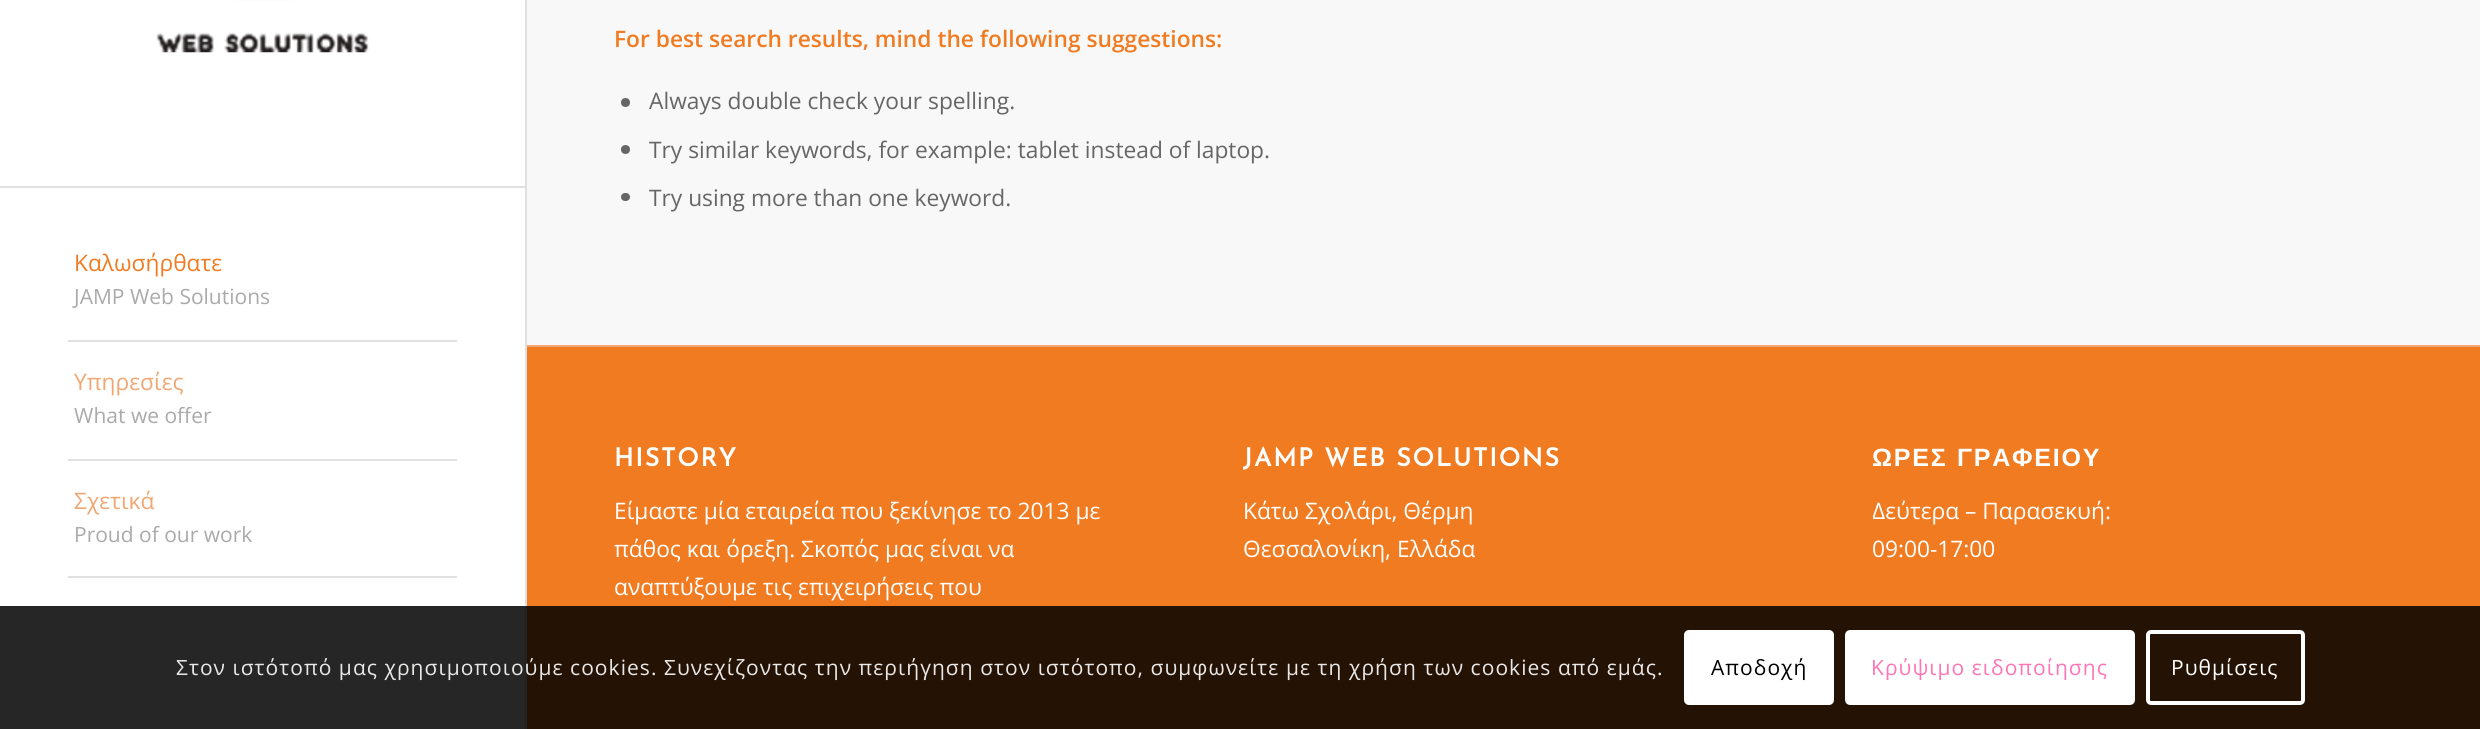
#include <cairo.h>
#include <math.h>
#include <stddef.h>

typedef struct { double x, y; const char *s; } line_t;

static void ink(cairo_t *ctx, unsigned color) {
    cairo_set_source_rgb(ctx, (color >> 16) / 255.0, (color >> 8 & 255) / 255.0, (color & 255) / 255.0);
}

static void write_spaced(cairo_t *ctx, double x, double y, const char *s, double letter, double word) {
    cairo_move_to(ctx, x, y);
    while (*s) {
        char ch[5] = {0};
        int n = 0;
        do ch[n++] = *s++; while ((*s & 0xC0) == 0x80);
        cairo_show_text(ctx, ch);
        cairo_rel_move_to(ctx, letter + word * (*ch == ' '), 0);
    }
}

static void round_path(cairo_t *ctx, double x, double y, double w, double h, double r) {
    cairo_new_sub_path(ctx);
    cairo_arc(ctx, x + w - r, y + h - r, r, 0, M_PI / 2);
    cairo_arc(ctx, x + r, y + h - r, r, M_PI / 2, M_PI);
    cairo_arc(ctx, x + r, y + r, r, M_PI, 1.5 * M_PI);
    cairo_arc(ctx, x + w - r, y + r, r, 1.5 * M_PI, 2 * M_PI);
    cairo_close_path(ctx);
}

static void paste(cairo_t *ctx, const char *path, double x, double y, double w, double h) {
    cairo_surface_t *image = cairo_image_surface_create_from_png(path);
    cairo_save(ctx);
    cairo_set_source_surface(ctx, image, x, y);
    cairo_rectangle(ctx, x, y, w, h);
    cairo_fill(ctx);
    cairo_restore(ctx);
    cairo_surface_destroy(image);
}

int main(void) {
    cairo_surface_t *surface = cairo_image_surface_create(CAIRO_FORMAT_RGB24, 2480, 729);
    cairo_t *ctx = cairo_create(surface);
    cairo_font_options_t *options = cairo_font_options_create();
    cairo_font_options_set_hint_metrics(options, CAIRO_HINT_METRICS_OFF);
    cairo_font_options_set_hint_style(options, CAIRO_HINT_STYLE_NONE);
    cairo_set_font_options(ctx, options);
    cairo_set_miter_limit(ctx, 4);
    ink(ctx, 0xFFFFFF);
    cairo_paint(ctx);
    ink(ctx, 0xE1E1E1);
    cairo_rectangle(ctx, 0, 186, 525, 2);
    cairo_fill(ctx);
    paste(ctx, "media/1.png", 156, 0, 213, 53);
    cairo_rectangle(ctx, 68, 340, 389, 2);
    cairo_fill(ctx);
    cairo_select_font_face(ctx, "Open Sans", CAIRO_FONT_SLANT_NORMAL, CAIRO_FONT_WEIGHT_NORMAL);
    cairo_set_font_size(ctx, 22.75);
    ink(ctx, 0xF17B21);
    cairo_move_to(ctx, 74, 271);
    cairo_show_text(ctx, "Καλωσήρθατε");
    cairo_set_font_size(ctx, 21);
    ink(ctx, 0xAAAAAA);
    cairo_move_to(ctx, 74, 304);
    cairo_show_text(ctx, "JAMP Web Solutions");
    ink(ctx, 0xE1E1E1);
    cairo_rectangle(ctx, 68, 459, 389, 2);
    cairo_fill(ctx);
    cairo_set_font_size(ctx, 22.75);
    ink(ctx, 0xF0A773);
    cairo_move_to(ctx, 74, 390);
    cairo_show_text(ctx, "Υπηρεσίες");
    cairo_set_font_size(ctx, 21);
    ink(ctx, 0xAAAAAA);
    cairo_move_to(ctx, 74, 423);
    cairo_show_text(ctx, "What we offer");
    ink(ctx, 0xE1E1E1);
    cairo_rectangle(ctx, 68, 576, 389, 2);
    cairo_fill(ctx);
    cairo_set_font_size(ctx, 22.75);
    ink(ctx, 0xF0A773);
    cairo_move_to(ctx, 74, 509);
    cairo_show_text(ctx, "Σχετικά");
    cairo_set_font_size(ctx, 21);
    ink(ctx, 0xAAAAAA);
    cairo_move_to(ctx, 74, 542);
    cairo_show_text(ctx, "Proud of our work");
    ink(ctx, 0xE1E1E1);
    cairo_rectangle(ctx, 525, 0, 2, 729);
    cairo_fill(ctx);
    ink(ctx, 0xF8F8F8);
    cairo_rectangle(ctx, 527, 0, 1953, 345);
    cairo_fill(ctx);
    cairo_select_font_face(ctx, "Open Sans SemiBold", CAIRO_FONT_SLANT_NORMAL, CAIRO_FONT_WEIGHT_NORMAL);
    cairo_set_font_size(ctx, 22.75);
    ink(ctx, 0xF17B21);
    cairo_move_to(ctx, 614, 47);
    cairo_show_text(ctx, "For best search results, mind the following suggestions:");
    ink(ctx, 0x666666);
    cairo_new_path(ctx);
    cairo_arc(ctx, 625.5, 102.5, 4.5, 0, 2 * M_PI);
    cairo_fill(ctx);
    cairo_select_font_face(ctx, "Open Sans", CAIRO_FONT_SLANT_NORMAL, CAIRO_FONT_WEIGHT_NORMAL);
    cairo_move_to(ctx, 649, 109);
    cairo_show_text(ctx, "Always double check your spelling.");
    cairo_new_path(ctx);
    cairo_arc(ctx, 625.5, 149.5, 4.5, 0, 2 * M_PI);
    cairo_fill(ctx);
    cairo_move_to(ctx, 649, 158);
    cairo_show_text(ctx, "Try similar keywords, for example: tablet instead of laptop.");
    round_path(ctx, 621, 193, 9, 8, 4);
    cairo_fill(ctx);
    cairo_move_to(ctx, 649, 206);
    cairo_show_text(ctx, "Try using more than one keyword.");
    ink(ctx, 0xF17B21);
    cairo_rectangle(ctx, 527, 347, 1953, 382);
    cairo_fill(ctx);
    ink(ctx, 0xF0A773);
    cairo_rectangle(ctx, 527, 345, 1953, 2);
    cairo_fill(ctx);
    cairo_select_font_face(ctx, "Josefin Sans", CAIRO_FONT_SLANT_NORMAL, CAIRO_FONT_WEIGHT_BOLD);
    cairo_set_font_size(ctx, 25);
    ink(ctx, 0xFFFFFF);
    write_spaced(ctx, 614, 466, "HISTORY", 1.75, 0);
    cairo_select_font_face(ctx, "Open Sans", CAIRO_FONT_SLANT_NORMAL, CAIRO_FONT_WEIGHT_NORMAL);
    cairo_set_font_size(ctx, 22.75);
    {
        static const line_t items[] = {
            {614, 519, "Είμαστε μία εταιρεία που ξεκίνησε το 2013 με"},
            {614, 557, "πάθος και όρεξη. Σκοπός μας είναι να"},
            {614, 595, "αναπτύξουμε τις επιχειρήσεις που"},
        };
        for (size_t i = 0; i < sizeof items / sizeof *items; i++) {
            cairo_move_to(ctx, items[i].x, items[i].y);
            cairo_show_text(ctx, items[i].s);
        }
    }
    cairo_select_font_face(ctx, "Josefin Sans", CAIRO_FONT_SLANT_NORMAL, CAIRO_FONT_WEIGHT_BOLD);
    cairo_set_font_size(ctx, 25);
    write_spaced(ctx, 1243, 466, "JAMP WEB SOLUTIONS", 1.75, 0);
    cairo_select_font_face(ctx, "Open Sans", CAIRO_FONT_SLANT_NORMAL, CAIRO_FONT_WEIGHT_NORMAL);
    cairo_set_font_size(ctx, 22.75);
    cairo_move_to(ctx, 1243, 519);
    cairo_show_text(ctx, "Κάτω Σχολάρι, Θέρμη");
    cairo_move_to(ctx, 1243, 557);
    cairo_show_text(ctx, "Θεσσαλονίκη, Ελλάδα");
    cairo_save(ctx);
    cairo_rectangle(ctx, 1873, 425, 521, 258);
    cairo_clip(ctx);
    cairo_select_font_face(ctx, "Liberation Sans", CAIRO_FONT_SLANT_NORMAL, CAIRO_FONT_WEIGHT_BOLD);
    cairo_set_font_size(ctx, 25);
    write_spaced(ctx, 1872, 466, "ΩΡΕΣ ΓΡΑΦΕΙΟΥ", 1.75, 1);
    cairo_select_font_face(ctx, "Open Sans", CAIRO_FONT_SLANT_NORMAL, CAIRO_FONT_WEIGHT_NORMAL);
    cairo_set_font_size(ctx, 22.75);
    cairo_move_to(ctx, 1872, 519);
    cairo_show_text(ctx, "Δεύτερα – Παρασεκυή:");
    cairo_restore(ctx);
    cairo_move_to(ctx, 1872, 557);
    cairo_show_text(ctx, "09:00-17:00");
    cairo_set_source_rgba(ctx, 0, 0, 0, 0.85);
    cairo_rectangle(ctx, 0, 606, 2480, 123);
    cairo_fill(ctx);
    cairo_set_font_size(ctx, 21);
    ink(ctx, 0xE9E8E7);
    write_spaced(ctx, 176, 675, "Στον ιστότοπό μας χρησιμοποιούμε cookies. Συνεχίζοντας την περιήγηση στον ιστότοπο, συμφωνείτε με τη χρήση των cookies από εμάς.", 1.05, 0);
    ink(ctx, 0xFFFFFF);
    round_path(ctx, 1684, 630, 150, 75, 5);
    cairo_fill(ctx);
    ink(ctx, 0x000000);
    write_spaced(ctx, 1711, 675, "Αποδοχή", 1.05, 0);
    ink(ctx, 0xFFFFFF);
    round_path(ctx, 1847, 632, 286, 71, 3);
    cairo_fill_preserve(ctx);
    cairo_set_line_width(ctx, 4);
    cairo_stroke(ctx);
    ink(ctx, 0xFF75B5);
    write_spaced(ctx, 1871, 675, "Κρύψιμο ειδοποίησης", 1.05, 0);
    round_path(ctx, 2148, 632, 155, 71, 3);
    ink(ctx, 0xFFFFFF);
    cairo_stroke(ctx);
    write_spaced(ctx, 2171, 675, "Ρυθμίσεις", 1.05, 0);
    cairo_surface_write_to_png(surface, "image.png");
    cairo_font_options_destroy(options);
    cairo_destroy(ctx);
    cairo_surface_destroy(surface);
    return 0;
}
